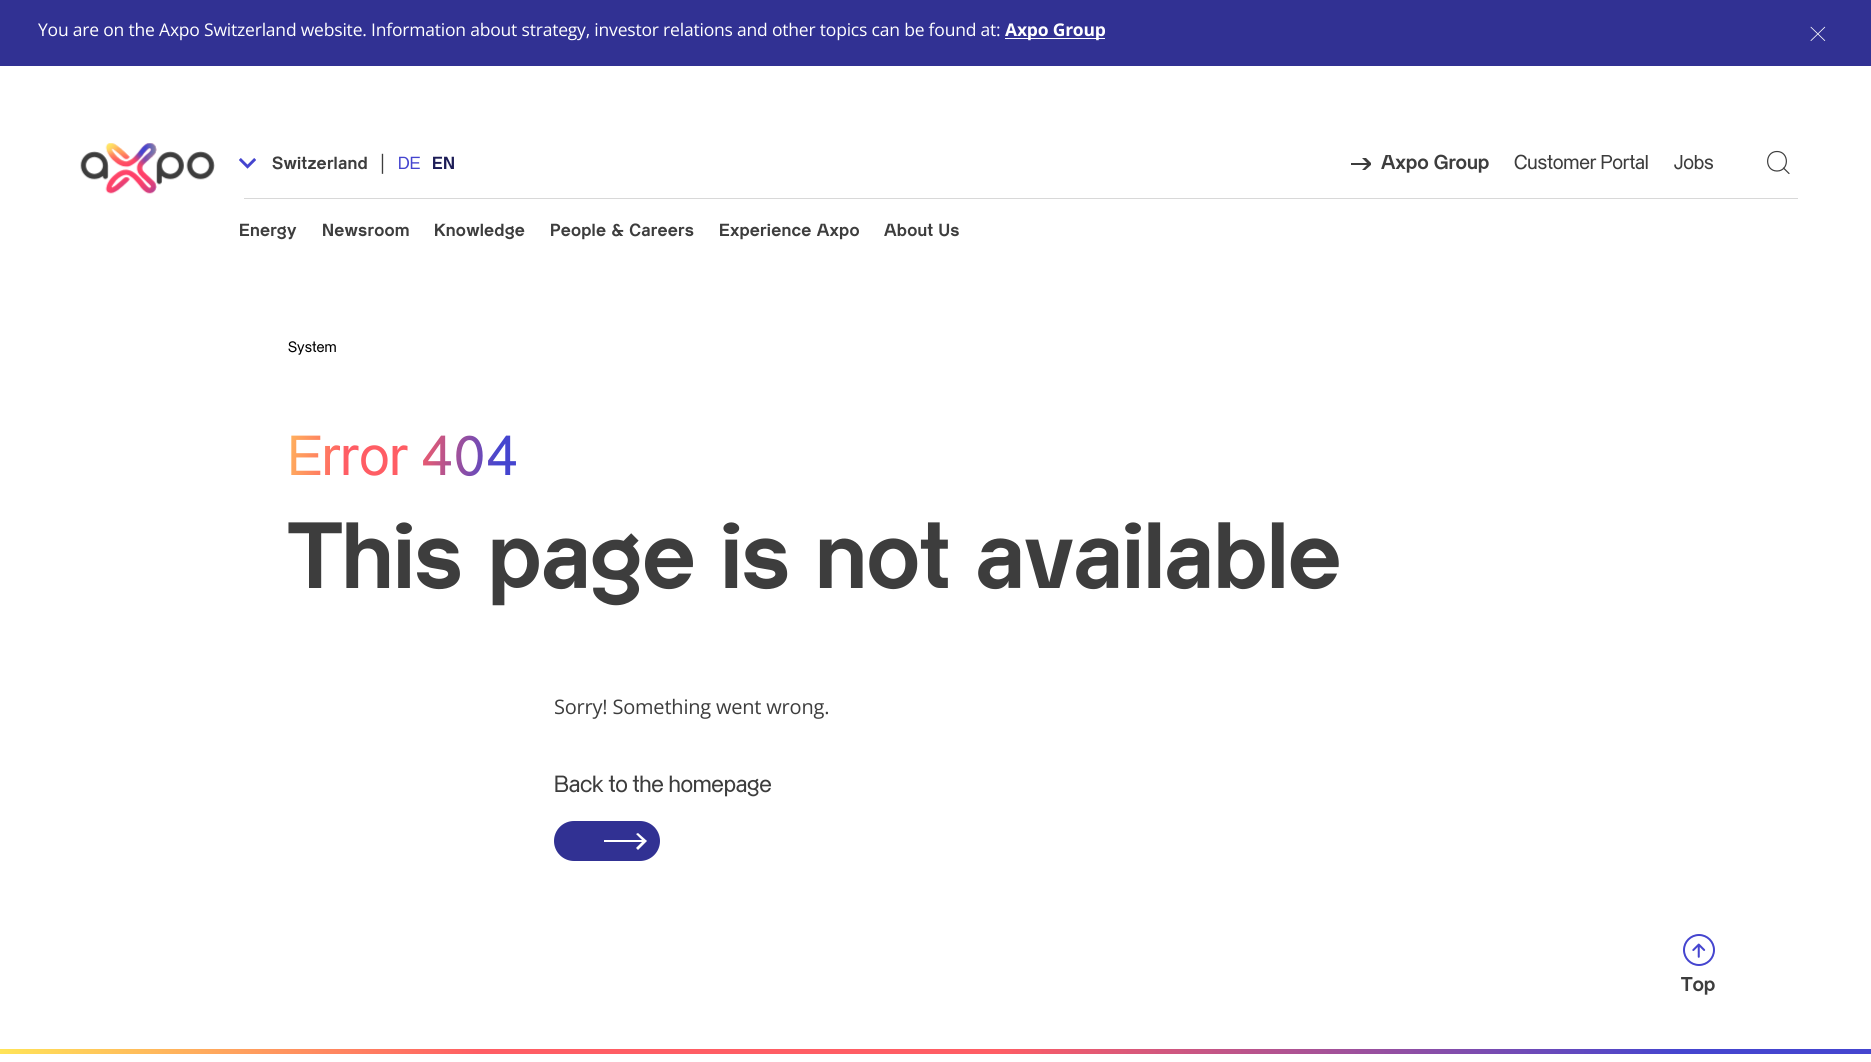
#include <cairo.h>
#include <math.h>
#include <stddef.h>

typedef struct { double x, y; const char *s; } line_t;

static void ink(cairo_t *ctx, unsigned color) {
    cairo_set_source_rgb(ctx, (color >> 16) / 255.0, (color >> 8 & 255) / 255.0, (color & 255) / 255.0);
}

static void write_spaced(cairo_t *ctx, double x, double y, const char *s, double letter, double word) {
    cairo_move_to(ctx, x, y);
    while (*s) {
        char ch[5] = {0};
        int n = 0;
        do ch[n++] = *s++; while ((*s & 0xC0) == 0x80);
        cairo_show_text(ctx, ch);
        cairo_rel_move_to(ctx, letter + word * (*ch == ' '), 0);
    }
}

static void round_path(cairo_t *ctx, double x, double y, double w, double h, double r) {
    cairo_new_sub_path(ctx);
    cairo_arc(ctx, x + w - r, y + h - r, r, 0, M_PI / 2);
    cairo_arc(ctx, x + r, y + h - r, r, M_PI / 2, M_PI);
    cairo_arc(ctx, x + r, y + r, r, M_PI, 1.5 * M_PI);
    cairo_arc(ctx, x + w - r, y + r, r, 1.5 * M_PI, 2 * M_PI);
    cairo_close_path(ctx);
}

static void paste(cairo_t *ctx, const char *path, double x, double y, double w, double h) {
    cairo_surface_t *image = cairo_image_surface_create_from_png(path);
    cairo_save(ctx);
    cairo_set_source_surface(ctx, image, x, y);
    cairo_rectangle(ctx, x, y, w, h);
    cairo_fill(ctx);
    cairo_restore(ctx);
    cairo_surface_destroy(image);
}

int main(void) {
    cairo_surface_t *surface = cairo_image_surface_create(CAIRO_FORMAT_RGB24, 1871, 1062);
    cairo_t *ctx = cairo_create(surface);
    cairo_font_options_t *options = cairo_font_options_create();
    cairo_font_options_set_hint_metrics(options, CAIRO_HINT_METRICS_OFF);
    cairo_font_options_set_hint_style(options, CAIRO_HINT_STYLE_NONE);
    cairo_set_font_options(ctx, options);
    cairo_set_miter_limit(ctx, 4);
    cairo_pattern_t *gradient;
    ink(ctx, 0xFFFFFF);
    cairo_paint(ctx);
    ink(ctx, 0x313193);
    cairo_rectangle(ctx, 0, 0, 1871, 66);
    cairo_fill(ctx);
    cairo_select_font_face(ctx, "Open Sans", CAIRO_FONT_SLANT_NORMAL, CAIRO_FONT_WEIGHT_NORMAL);
    cairo_set_font_size(ctx, 17.5);
    ink(ctx, 0xFFFFFF);
    write_spaced(ctx, 38, 36, "You are on the Axpo Switzerland website. Information about strategy, investor relations and other topics can be found at:", -0.2, 0);
    cairo_rectangle(ctx, 1005, 38, 100, 1);
    cairo_fill(ctx);
    cairo_select_font_face(ctx, "Open Sans", CAIRO_FONT_SLANT_NORMAL, CAIRO_FONT_WEIGHT_BOLD);
    write_spaced(ctx, 1005, 36, "Axpo Group", -0.2, 0);
    paste(ctx, "media/1.png", 1810, 26, 16, 15);
    paste(ctx, "media/2.png", 80, 143, 135, 51);
    paste(ctx, "media/3.png", 239, 158, 17, 11);
    cairo_select_font_face(ctx, "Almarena", CAIRO_FONT_SLANT_NORMAL, CAIRO_FONT_WEIGHT_BOLD);
    ink(ctx, 0x3D3D3D);
    write_spaced(ctx, 272, 169, "Switzerland", 0.2, 0);
    cairo_select_font_face(ctx, "Open Sans", CAIRO_FONT_SLANT_NORMAL, CAIRO_FONT_WEIGHT_NORMAL);
    cairo_set_font_size(ctx, 20);
    write_spaced(ctx, 377, 169, "|", -0.2, 0);
    cairo_select_font_face(ctx, "Almarena", CAIRO_FONT_SLANT_NORMAL, CAIRO_FONT_WEIGHT_NORMAL);
    cairo_set_font_size(ctx, 17.5);
    ink(ctx, 0x4545CF);
    write_spaced(ctx, 398, 169, "DE", 0.2, 0);
    cairo_select_font_face(ctx, "Almarena", CAIRO_FONT_SLANT_NORMAL, CAIRO_FONT_WEIGHT_BOLD);
    ink(ctx, 0x1D1D57);
    write_spaced(ctx, 432, 169, "EN", 0.2, 0);
    cairo_save(ctx);
    cairo_rectangle(ctx, 1351, 158, 20, 12);
    cairo_clip(ctx);
    ink(ctx, 0x3D3D3D);
    cairo_new_path(ctx);
    cairo_move_to(ctx, 1281, 165);
    cairo_line_to(ctx, 1321, 165);
    cairo_line_to(ctx, 1315, 171);
    cairo_line_to(ctx, 1316, 172);
    cairo_line_to(ctx, 1325, 164);
    cairo_line_to(ctx, 1316, 155);
    cairo_line_to(ctx, 1315, 157);
    cairo_line_to(ctx, 1321, 163);
    cairo_line_to(ctx, 1281, 163);
    cairo_close_path(ctx);
    cairo_move_to(ctx, 1328, 165);
    cairo_line_to(ctx, 1367, 165);
    cairo_line_to(ctx, 1361, 171);
    cairo_line_to(ctx, 1363, 172);
    cairo_line_to(ctx, 1372, 164);
    cairo_line_to(ctx, 1363, 155);
    cairo_line_to(ctx, 1361, 157);
    cairo_line_to(ctx, 1367, 163);
    cairo_line_to(ctx, 1328, 163);
    cairo_close_path(ctx);
    cairo_fill(ctx);
    cairo_restore(ctx);
    cairo_set_font_size(ctx, 20);
    ink(ctx, 0x3D3D3D);
    write_spaced(ctx, 1381, 169, "Axpo Group", -0.2, 0);
    cairo_select_font_face(ctx, "Almarena", CAIRO_FONT_SLANT_NORMAL, CAIRO_FONT_WEIGHT_NORMAL);
    write_spaced(ctx, 1514, 169, "Customer Portal", -0.2, 0);
    write_spaced(ctx, 1674, 169, "Jobs", -0.2, 0);
    cairo_new_path(ctx);
    cairo_move_to(ctx, 1777, 171);
    cairo_curve_to(ctx, 1789.5, 171, 1789.5, 151.5, 1777, 151.5);
    cairo_curve_to(ctx, 1764.5, 151.5, 1764.5, 171, 1777, 171);
    cairo_close_path(ctx);
    cairo_move_to(ctx, 1789, 173.5);
    cairo_line_to(ctx, 1783.5, 168);
    cairo_set_line_width(ctx, 1.2);
    cairo_set_line_cap(ctx, CAIRO_LINE_CAP_ROUND);
    cairo_set_line_join(ctx, CAIRO_LINE_JOIN_ROUND);
    cairo_stroke(ctx);
    ink(ctx, 0xD8D8D8);
    cairo_rectangle(ctx, 244, 198, 1554, 1);
    cairo_fill(ctx);
    cairo_select_font_face(ctx, "Almarena", CAIRO_FONT_SLANT_NORMAL, CAIRO_FONT_WEIGHT_BOLD);
    cairo_set_font_size(ctx, 17.5);
    ink(ctx, 0x3D3D3D);
    {
        static const line_t items[] = {
            {239, 236, "Energy"},
            {322, 236, "Newsroom"},
            {434, 236, "Knowledge"},
            {550, 236, "People & Careers"},
            {719, 236, "Experience Axpo"},
            {884, 236, "About Us"},
        };
        for (size_t i = 0; i < sizeof items / sizeof *items; i++) {
            write_spaced(ctx, items[i].x, items[i].y, items[i].s, 0.2, 0);
        }
    }
    cairo_select_font_face(ctx, "Almarena", CAIRO_FONT_SLANT_NORMAL, CAIRO_FONT_WEIGHT_NORMAL);
    cairo_set_font_size(ctx, 15);
    ink(ctx, 0x000000);
    cairo_move_to(ctx, 288, 352);
    cairo_show_text(ctx, "System");
    cairo_set_font_size(ctx, 56.25);
    gradient = cairo_pattern_create_linear(248, 434, 521, 478);
    cairo_pattern_add_color_stop_rgba(gradient, 0, 1, 0.929, 0.341, 1);
    cairo_pattern_add_color_stop_rgba(gradient, 0.36, 1, 0.365, 0.392, 1);
    cairo_pattern_add_color_stop_rgba(gradient, 0.6, 1, 0.365, 0.392, 1);
    cairo_pattern_add_color_stop_rgba(gradient, 0.91, 0.271, 0.271, 0.812, 1);
    cairo_set_source(ctx, gradient);
    cairo_pattern_destroy(gradient);
    cairo_move_to(ctx, 288, 475);
    cairo_show_text(ctx, "Error 404");
    cairo_select_font_face(ctx, "Almarena", CAIRO_FONT_SLANT_NORMAL, CAIRO_FONT_WEIGHT_BOLD);
    cairo_set_font_size(ctx, 93.75);
    ink(ctx, 0x3D3D3D);
    write_spaced(ctx, 288, 588, "This page is not available", -0.95, 0);
    cairo_select_font_face(ctx, "Open Sans", CAIRO_FONT_SLANT_NORMAL, CAIRO_FONT_WEIGHT_NORMAL);
    cairo_set_font_size(ctx, 20);
    write_spaced(ctx, 554, 714, "Sorry! Something went wrong.", -0.2, 0);
    cairo_select_font_face(ctx, "Almarena", CAIRO_FONT_SLANT_NORMAL, CAIRO_FONT_WEIGHT_NORMAL);
    cairo_set_font_size(ctx, 23.4);
    write_spaced(ctx, 554, 792, "Back to the homepage", -0.25, 0);
    ink(ctx, 0x313193);
    round_path(ctx, 554, 821, 106, 40, 20);
    cairo_fill(ctx);
    cairo_save(ctx);
    cairo_rectangle(ctx, 604, 833, 44, 17);
    cairo_clip(ctx);
    ink(ctx, 0xFFFFFF);
    cairo_new_path(ctx);
    cairo_move_to(ctx, 556, 842);
    cairo_line_to(ctx, 596, 842);
    cairo_line_to(ctx, 590, 848);
    cairo_line_to(ctx, 591, 850);
    cairo_line_to(ctx, 600, 841);
    cairo_line_to(ctx, 591, 833);
    cairo_line_to(ctx, 590, 834);
    cairo_line_to(ctx, 596, 840);
    cairo_line_to(ctx, 556, 840);
    cairo_close_path(ctx);
    cairo_move_to(ctx, 603, 842);
    cairo_line_to(ctx, 642, 842);
    cairo_line_to(ctx, 636, 848);
    cairo_line_to(ctx, 638, 850);
    cairo_line_to(ctx, 647, 841);
    cairo_line_to(ctx, 638, 833);
    cairo_line_to(ctx, 636, 834);
    cairo_line_to(ctx, 642, 840);
    cairo_line_to(ctx, 603, 840);
    cairo_close_path(ctx);
    cairo_fill(ctx);
    cairo_restore(ctx);
    paste(ctx, "media/4.png", 1683, 934, 32, 32);
    cairo_select_font_face(ctx, "Almarena", CAIRO_FONT_SLANT_NORMAL, CAIRO_FONT_WEIGHT_BOLD);
    cairo_set_font_size(ctx, 20);
    ink(ctx, 0x3D3D3D);
    write_spaced(ctx, 1681, 991, "Top", -0.2, 0);
    gradient = cairo_pattern_create_linear(-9, 902, 1849, 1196);
    cairo_pattern_add_color_stop_rgba(gradient, 0, 1, 0.929, 0.341, 1);
    cairo_pattern_add_color_stop_rgba(gradient, 0.27, 1, 0.365, 0.392, 1);
    cairo_pattern_add_color_stop_rgba(gradient, 0.54, 1, 0.365, 0.392, 1);
    cairo_pattern_add_color_stop_rgba(gradient, 0.9, 0.271, 0.271, 0.812, 1);
    cairo_set_source(ctx, gradient);
    cairo_pattern_destroy(gradient);
    cairo_rectangle(ctx, 0, 1049, 1871, 5);
    cairo_fill(ctx);
    cairo_surface_write_to_png(surface, "image.png");
    cairo_font_options_destroy(options);
    cairo_destroy(ctx);
    cairo_surface_destroy(surface);
    return 0;
}
